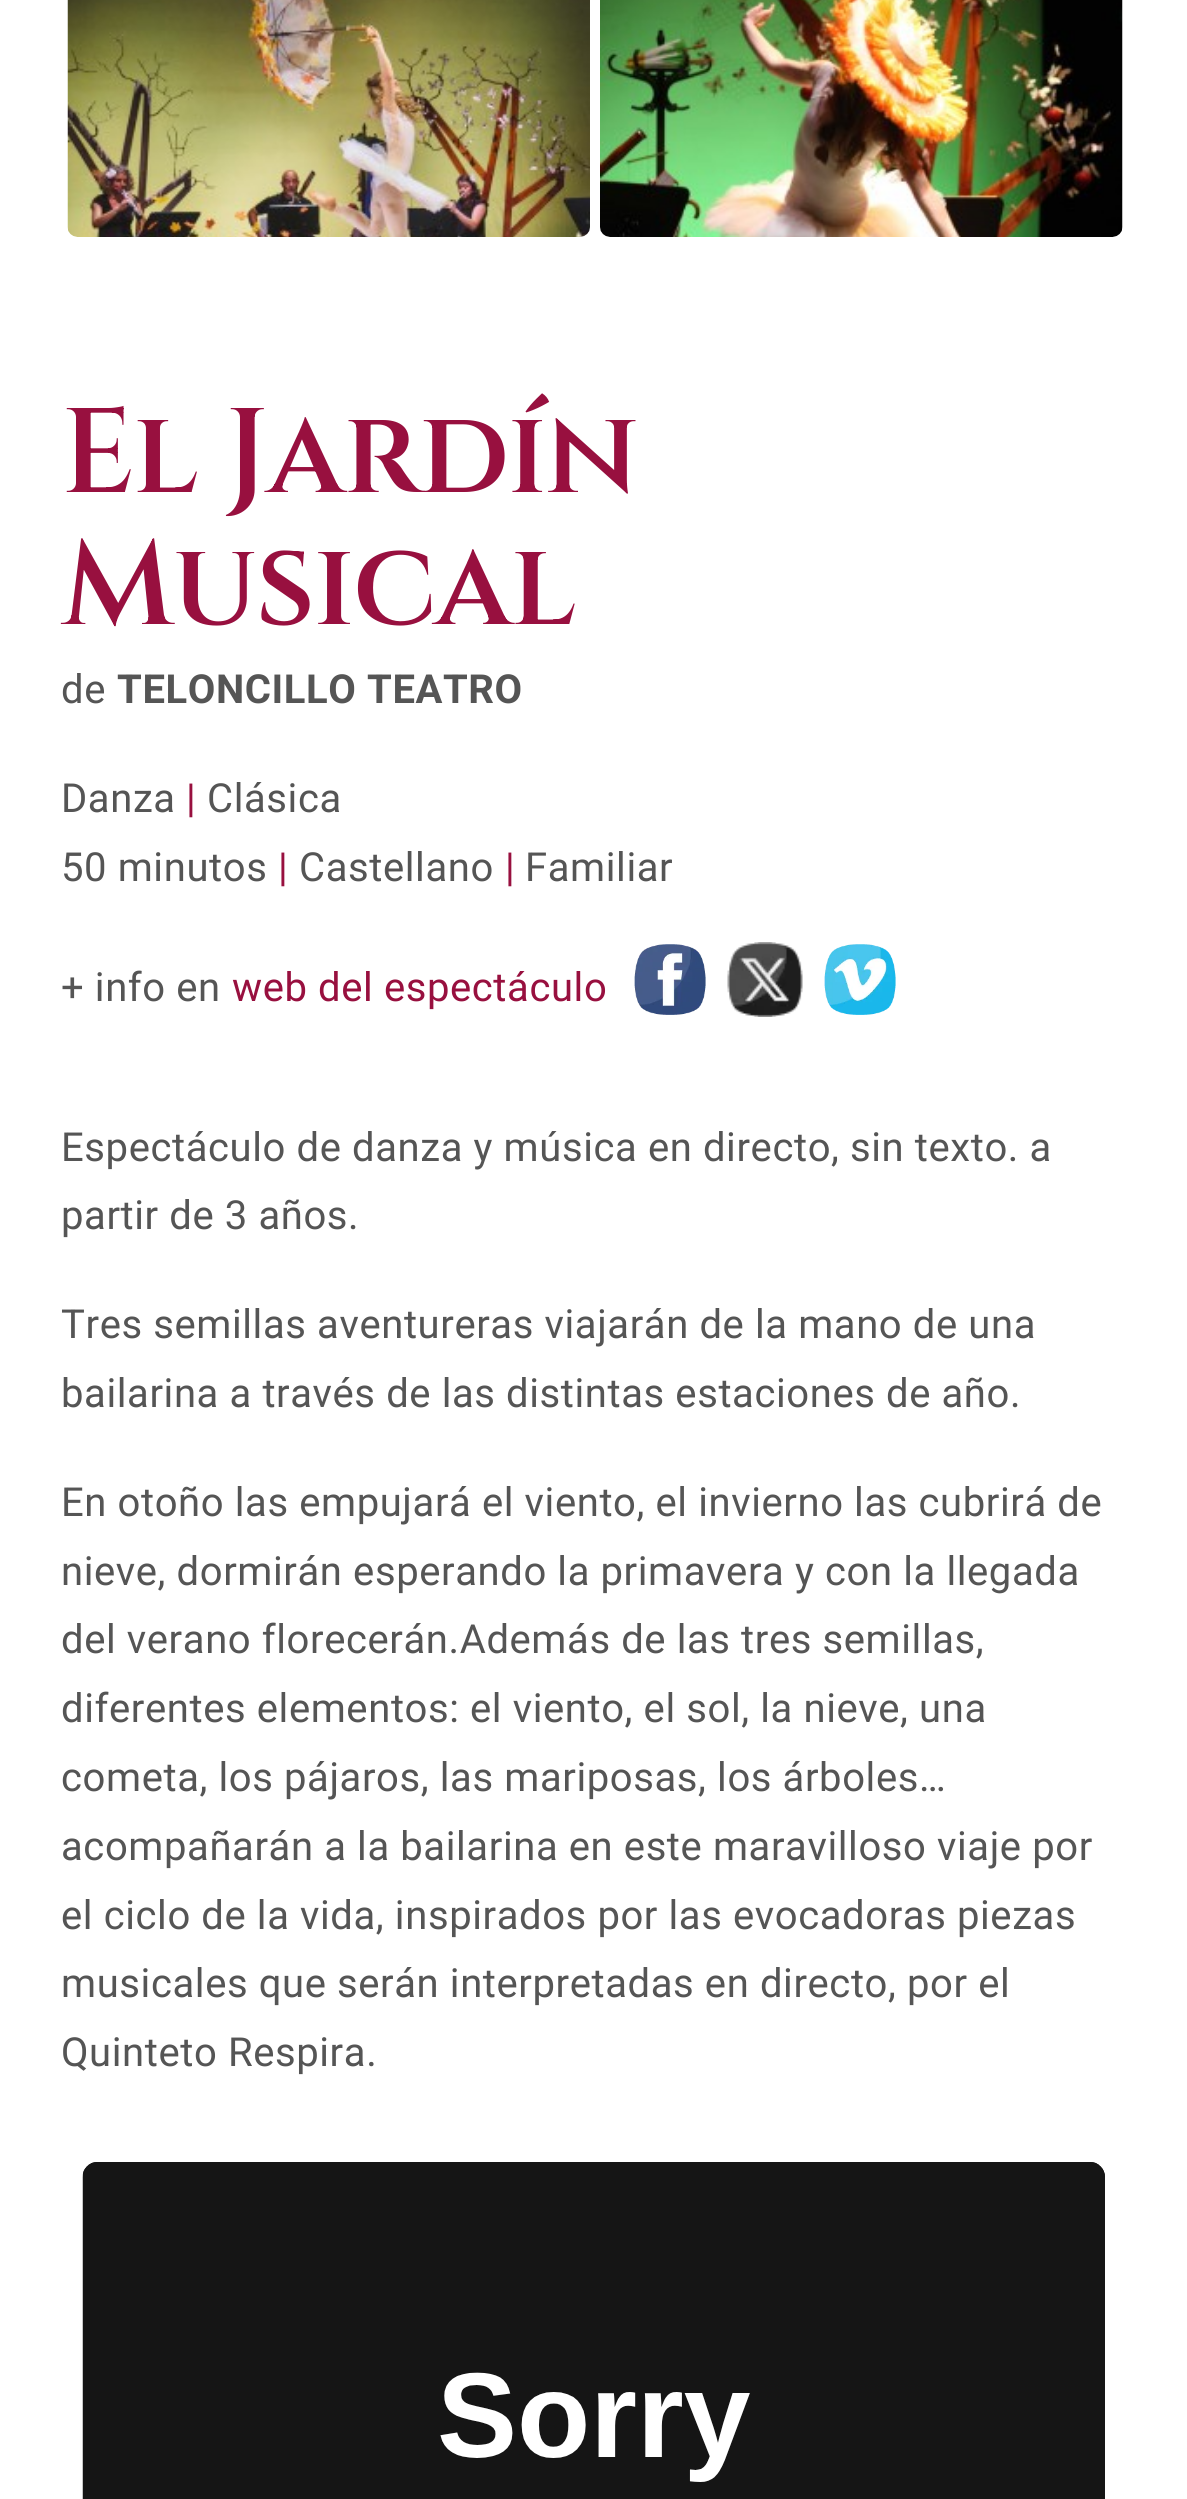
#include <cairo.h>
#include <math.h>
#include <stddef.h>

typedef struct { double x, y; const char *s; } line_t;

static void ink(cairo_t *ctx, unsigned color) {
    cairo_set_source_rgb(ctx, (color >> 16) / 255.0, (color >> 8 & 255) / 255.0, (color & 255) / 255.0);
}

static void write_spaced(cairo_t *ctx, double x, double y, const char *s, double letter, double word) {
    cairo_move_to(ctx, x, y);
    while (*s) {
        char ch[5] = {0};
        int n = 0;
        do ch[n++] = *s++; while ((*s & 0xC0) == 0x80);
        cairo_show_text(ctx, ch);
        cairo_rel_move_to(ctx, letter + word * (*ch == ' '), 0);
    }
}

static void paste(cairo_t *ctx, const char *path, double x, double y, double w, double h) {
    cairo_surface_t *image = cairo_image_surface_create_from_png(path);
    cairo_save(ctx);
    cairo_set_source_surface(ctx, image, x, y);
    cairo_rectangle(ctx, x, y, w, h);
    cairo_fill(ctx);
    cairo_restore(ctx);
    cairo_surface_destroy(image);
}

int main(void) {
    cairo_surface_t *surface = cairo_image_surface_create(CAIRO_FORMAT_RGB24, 1187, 2499);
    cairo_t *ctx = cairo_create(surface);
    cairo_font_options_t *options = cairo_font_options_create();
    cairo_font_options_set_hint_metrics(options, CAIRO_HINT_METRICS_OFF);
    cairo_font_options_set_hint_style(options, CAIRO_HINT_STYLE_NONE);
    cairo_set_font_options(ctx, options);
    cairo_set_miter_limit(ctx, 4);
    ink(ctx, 0xFFFFFF);
    cairo_paint(ctx);
    paste(ctx, "media/1.png", 67, 0, 523, 237);
    paste(ctx, "media/2.png", 600, 0, 523, 237);
    cairo_select_font_face(ctx, "Cinzel SemiBold", CAIRO_FONT_SLANT_NORMAL, CAIRO_FONT_WEIGHT_NORMAL);
    cairo_set_font_size(ctx, 120);
    ink(ctx, 0x98103F);
    write_spaced(ctx, 61, 492, "El Jardín", -1.75, 0);
    write_spaced(ctx, 61, 624, "Musical", -1.75, 0);
    cairo_select_font_face(ctx, "Roboto", CAIRO_FONT_SLANT_NORMAL, CAIRO_FONT_WEIGHT_NORMAL);
    cairo_set_font_size(ctx, 40);
    ink(ctx, 0x555555);
    write_spaced(ctx, 61, 703, "de", 0.6, 0);
    cairo_select_font_face(ctx, "Roboto", CAIRO_FONT_SLANT_NORMAL, CAIRO_FONT_WEIGHT_BOLD);
    write_spaced(ctx, 117, 703, "TELONCILLO TEATRO", 0.6, 0);
    cairo_select_font_face(ctx, "Roboto", CAIRO_FONT_SLANT_NORMAL, CAIRO_FONT_WEIGHT_NORMAL);
    write_spaced(ctx, 61, 812, "Danza", 0.6, 0);
    ink(ctx, 0x98103F);
    write_spaced(ctx, 186, 812, "|", 0.6, 0);
    ink(ctx, 0x555555);
    write_spaced(ctx, 207, 812, "Clásica", 0.6, 0);
    write_spaced(ctx, 61, 881, "50 minutos", 0.6, 0);
    ink(ctx, 0x98103F);
    write_spaced(ctx, 278, 881, "|", 0.6, 0);
    ink(ctx, 0x555555);
    write_spaced(ctx, 299, 881, "Castellano", 0.6, 0);
    ink(ctx, 0x98103F);
    write_spaced(ctx, 505, 881, "|", 0.6, 0);
    ink(ctx, 0x555555);
    write_spaced(ctx, 525, 881, "Familiar", 0.6, 0);
    write_spaced(ctx, 61, 1001, "+ info en", 0.6, 0);
    ink(ctx, 0x98103F);
    write_spaced(ctx, 232, 1001, "web del espectáculo", 0.6, 0);
    paste(ctx, "media/3.png", 634, 944, 72, 71);
    paste(ctx, "media/4.png", 727, 942, 76, 75);
    paste(ctx, "media/5.png", 824, 944, 72, 71);
    ink(ctx, 0x555555);
    {
        static const line_t items[] = {
            {61, 1161, "Espectáculo de danza y música en directo, sin texto. a"},
            {61, 1229, "partir de 3 años."},
            {61, 1338, "Tres semillas aventureras viajarán de la mano de una"},
            {61, 1407, "bailarina a través de las distintas estaciones de año."},
            {61, 1516, "En otoño las empujará el viento, el invierno las cubrirá de"},
            {61, 1585, "nieve, dormirán esperando la primavera y con la llegada"},
            {61, 1653, "del verano florecerán.Además de las tres semillas,"},
            {61, 1722, "diferentes elementos: el viento, el sol, la nieve, una"},
            {61, 1791, "cometa, los pájaros, las mariposas, los árboles…"},
            {61, 1860, "acompañarán a la bailarina en este maravilloso viaje por"},
            {61, 1929, "el ciclo de la vida, inspirados por las evocadoras piezas"},
            {61, 1997, "musicales que serán interpretadas en directo, por el"},
            {61, 2066, "Quinteto Respira."},
        };
        for (size_t i = 0; i < sizeof items / sizeof *items; i++) {
            write_spaced(ctx, items[i].x, items[i].y, items[i].s, 0.6, 0);
        }
    }
    paste(ctx, "media/6.png", 82, 2162, 1023, 337);
    cairo_surface_write_to_png(surface, "image.png");
    cairo_font_options_destroy(options);
    cairo_destroy(ctx);
    cairo_surface_destroy(surface);
    return 0;
}
